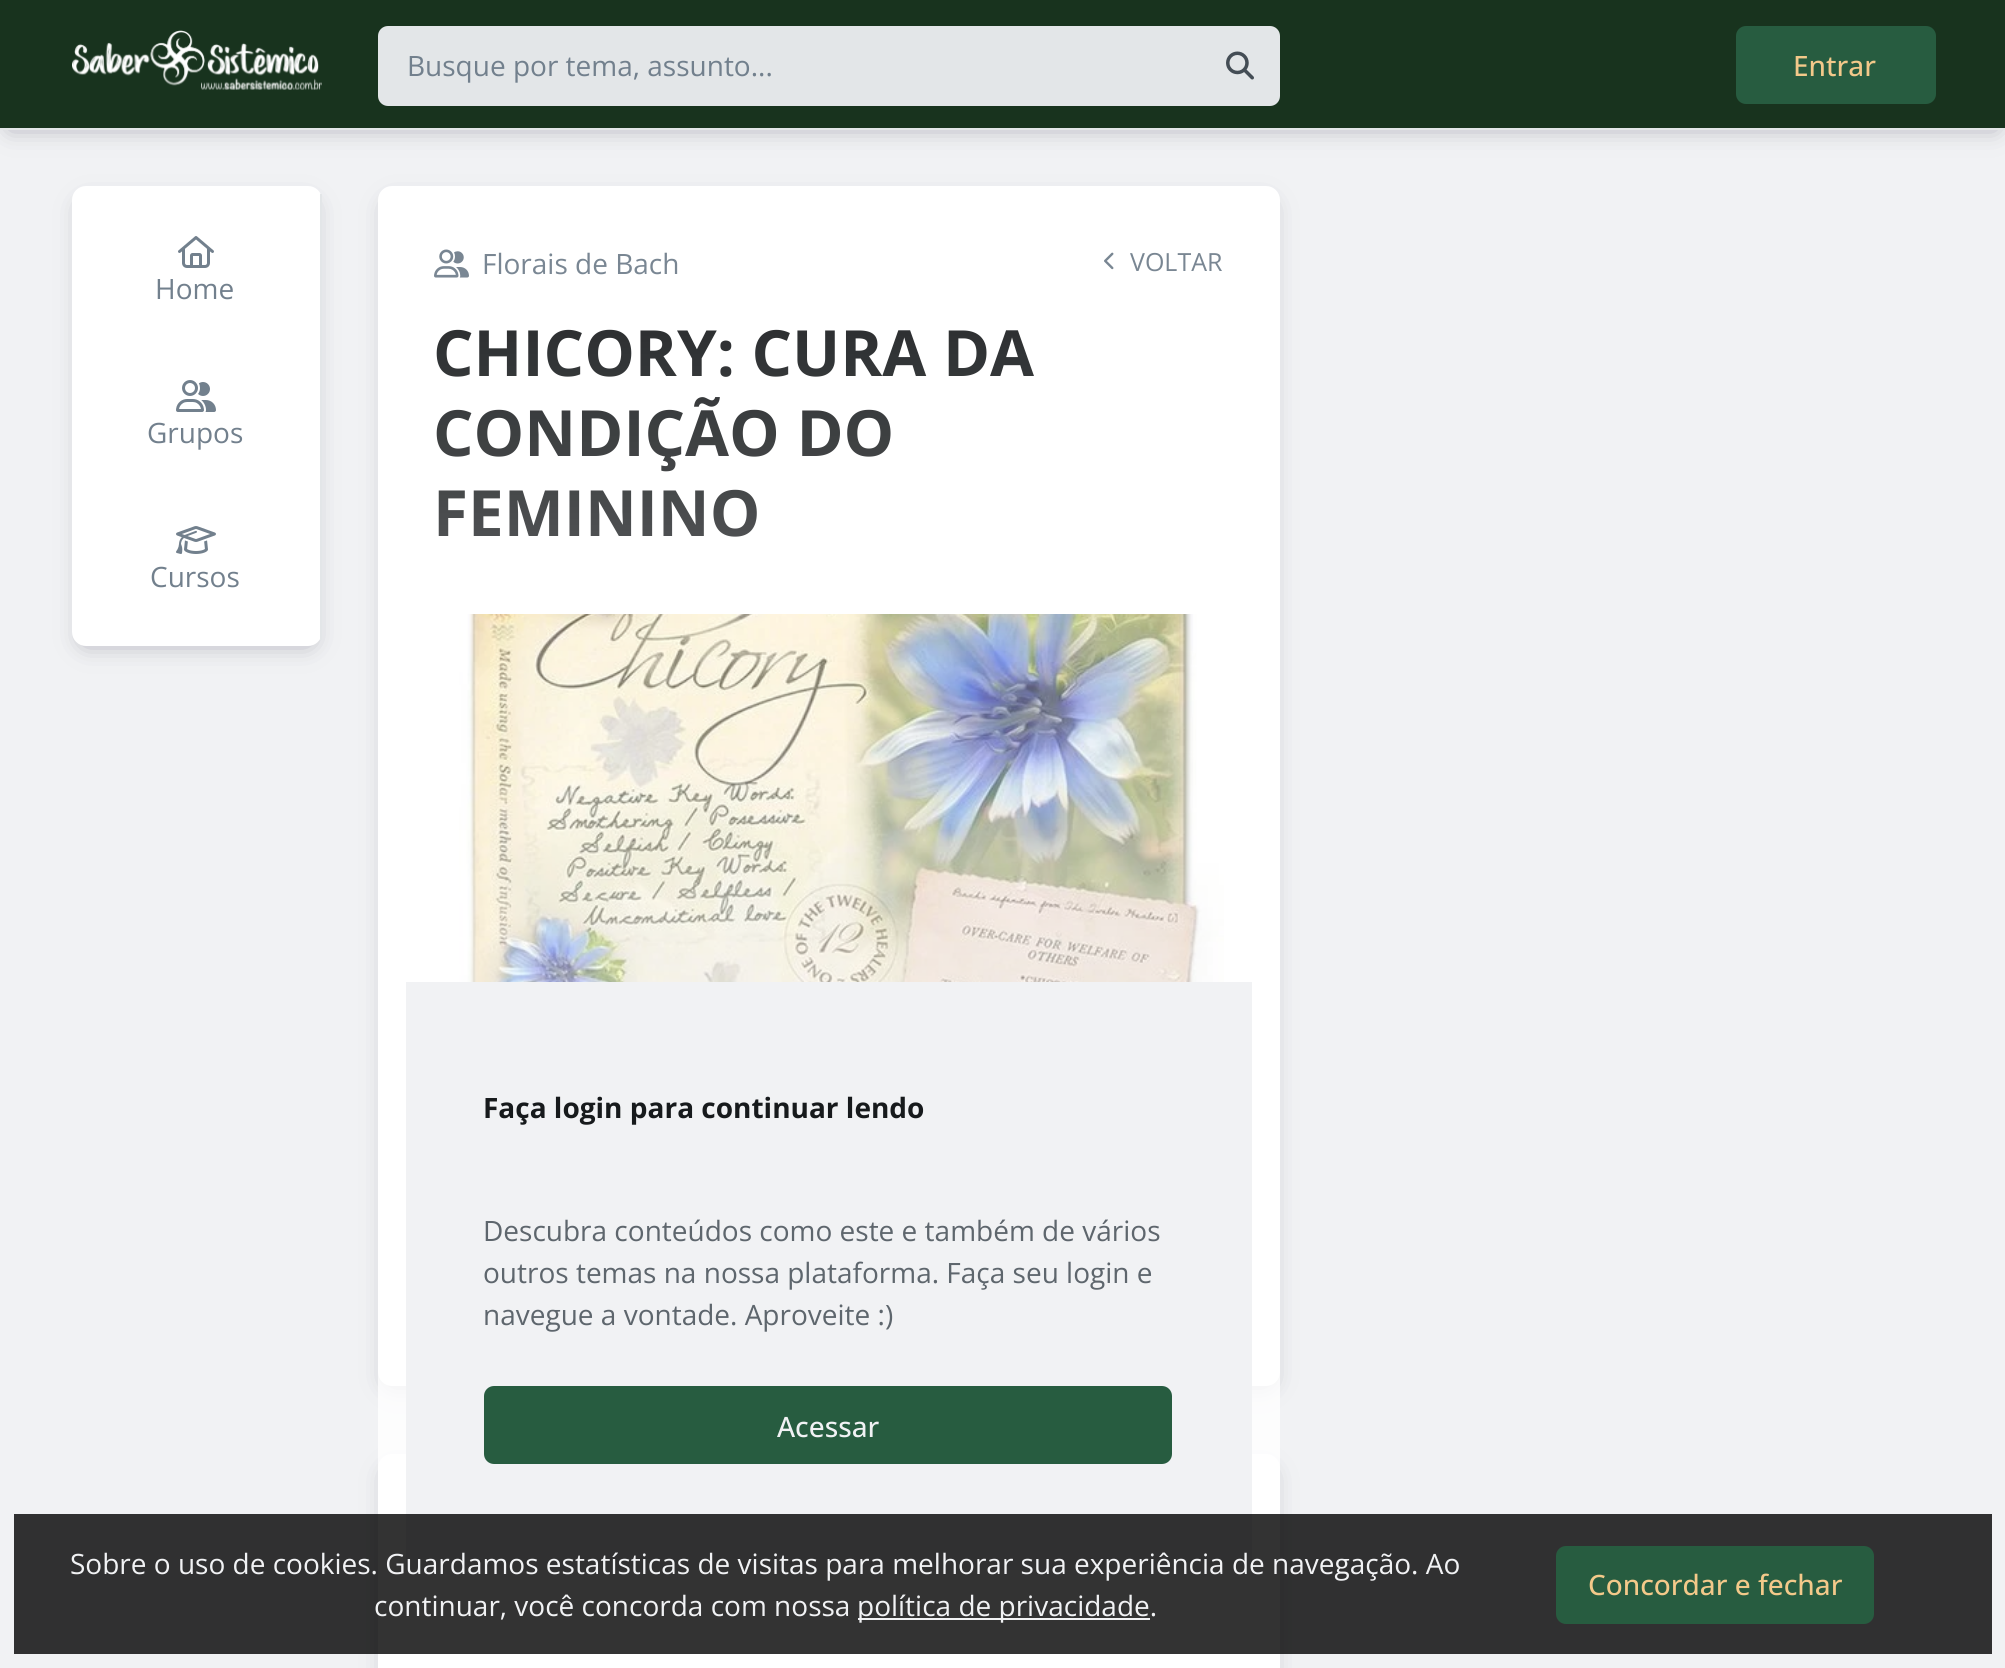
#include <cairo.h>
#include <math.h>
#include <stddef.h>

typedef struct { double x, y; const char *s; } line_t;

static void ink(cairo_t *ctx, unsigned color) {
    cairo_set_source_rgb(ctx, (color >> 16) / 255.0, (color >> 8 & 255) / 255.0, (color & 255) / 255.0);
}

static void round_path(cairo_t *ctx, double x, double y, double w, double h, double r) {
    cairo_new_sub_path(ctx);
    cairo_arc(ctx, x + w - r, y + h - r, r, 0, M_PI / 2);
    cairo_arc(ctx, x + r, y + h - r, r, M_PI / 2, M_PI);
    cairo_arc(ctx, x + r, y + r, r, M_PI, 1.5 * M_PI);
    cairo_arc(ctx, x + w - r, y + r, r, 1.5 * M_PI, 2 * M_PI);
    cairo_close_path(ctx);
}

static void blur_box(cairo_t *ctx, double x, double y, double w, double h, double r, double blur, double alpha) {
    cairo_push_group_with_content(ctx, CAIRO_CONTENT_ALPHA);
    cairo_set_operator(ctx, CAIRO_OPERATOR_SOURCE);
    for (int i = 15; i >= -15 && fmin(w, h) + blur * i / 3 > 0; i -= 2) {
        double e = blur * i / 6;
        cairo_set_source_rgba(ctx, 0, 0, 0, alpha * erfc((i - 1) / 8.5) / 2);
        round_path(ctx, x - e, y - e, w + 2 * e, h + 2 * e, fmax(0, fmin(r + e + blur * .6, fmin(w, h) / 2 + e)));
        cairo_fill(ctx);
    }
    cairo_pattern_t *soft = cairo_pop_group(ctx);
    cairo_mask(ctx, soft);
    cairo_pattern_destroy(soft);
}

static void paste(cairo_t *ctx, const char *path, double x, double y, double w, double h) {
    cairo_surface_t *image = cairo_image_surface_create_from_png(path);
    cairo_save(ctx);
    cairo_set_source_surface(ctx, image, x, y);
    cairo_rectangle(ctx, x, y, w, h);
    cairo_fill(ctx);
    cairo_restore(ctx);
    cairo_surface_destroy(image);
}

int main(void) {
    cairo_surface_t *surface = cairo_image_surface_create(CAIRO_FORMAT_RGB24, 2005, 1668);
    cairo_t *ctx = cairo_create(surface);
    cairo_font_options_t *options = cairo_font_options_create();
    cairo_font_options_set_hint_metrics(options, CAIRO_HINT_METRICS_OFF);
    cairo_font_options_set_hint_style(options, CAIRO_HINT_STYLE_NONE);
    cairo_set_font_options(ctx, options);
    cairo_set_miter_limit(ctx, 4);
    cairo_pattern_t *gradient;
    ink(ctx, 0xF1F2F4);
    cairo_paint(ctx);
    ink(ctx, 0x646476);
    blur_box(ctx, 10, 18, 1986, 110, 0, 12, 0.5);
    ink(ctx, 0x18331E);
    cairo_rectangle(ctx, 0, 0, 2005, 128);
    cairo_fill(ctx);
    ink(ctx, 0xE3E6E8);
    cairo_rectangle(ctx, 0, 128, 2005, 2);
    cairo_fill(ctx);
    paste(ctx, "media/1.png", 72, 30, 250, 60);
    round_path(ctx, 378, 26, 902, 80, 10);
    cairo_fill(ctx);
    cairo_select_font_face(ctx, "Open Sans", CAIRO_FONT_SLANT_NORMAL, CAIRO_FONT_WEIGHT_NORMAL);
    cairo_set_font_size(ctx, 28);
    ink(ctx, 0x72808D);
    cairo_move_to(ctx, 407, 76);
    cairo_show_text(ctx, "Busque por tema, assunto...");
    paste(ctx, "media/2.png", 1226, 51, 28, 29);
    ink(ctx, 0x275C40);
    round_path(ctx, 1738, 28, 196, 74, 8);
    cairo_fill_preserve(ctx);
    cairo_set_line_width(ctx, 4);
    cairo_stroke(ctx);
    cairo_select_font_face(ctx, "Open Sans Medium", CAIRO_FONT_SLANT_NORMAL, CAIRO_FONT_WEIGHT_NORMAL);
    ink(ctx, 0xF3C98A);
    cairo_move_to(ctx, 1793, 76);
    cairo_show_text(ctx, "Entrar");
    ink(ctx, 0x646476);
    blur_box(ctx, 82, 204, 230, 440, 4, 12, 0.5);
    ink(ctx, 0xFFFFFF);
    round_path(ctx, 72, 186, 250, 460, 14);
    cairo_fill(ctx);
    ink(ctx, 0xE3E6E8);
    cairo_rectangle(ctx, 320, 194, 2, 446);
    cairo_fill(ctx);
    paste(ctx, "media/3.png", 178, 236, 36, 32);
    cairo_select_font_face(ctx, "Open Sans", CAIRO_FONT_SLANT_NORMAL, CAIRO_FONT_WEIGHT_NORMAL);
    ink(ctx, 0x72808D);
    cairo_move_to(ctx, 155, 299);
    cairo_show_text(ctx, "Home");
    paste(ctx, "media/4.png", 176, 380, 40, 32);
    cairo_move_to(ctx, 147, 443);
    cairo_show_text(ctx, "Grupos");
    paste(ctx, "media/5.png", 176, 526, 40, 28);
    cairo_move_to(ctx, 150, 587);
    cairo_show_text(ctx, "Cursos");
    ink(ctx, 0x646476);
    blur_box(ctx, 388, 204, 882, 1180, 4, 12, 0.5);
    ink(ctx, 0xFFFFFF);
    round_path(ctx, 378, 186, 902, 1200, 14);
    cairo_fill(ctx);
    paste(ctx, "media/6.png", 434, 249, 35, 29);
    ink(ctx, 0x72808D);
    cairo_move_to(ctx, 482, 274);
    cairo_show_text(ctx, "Florais de Bach");
    paste(ctx, "media/7.png", 1104, 252, 10, 18);
    cairo_set_font_size(ctx, 25);
    cairo_move_to(ctx, 1130, 271);
    cairo_show_text(ctx, "VOLTAR");
    cairo_select_font_face(ctx, "Open Sans", CAIRO_FONT_SLANT_NORMAL, CAIRO_FONT_WEIGHT_BOLD);
    cairo_set_font_size(ctx, 63.75);
    ink(ctx, 0x171A1C);
    {
        static const line_t items[] = {
            {433, 376, "CHICORY: CURA DA"},
            {433, 456, "CONDIÇÃO DO"},
            {433, 536, "FEMININO"},
        };
        for (size_t i = 0; i < sizeof items / sizeof *items; i++) {
            cairo_move_to(ctx, items[i].x, items[i].y);
            cairo_show_text(ctx, items[i].s);
        }
    }
    paste(ctx, "media/8.png", 459, 614, 765, 368);
    ink(ctx, 0x646476);
    blur_box(ctx, 388, 1472, 882, 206, 4, 12, 0.5);
    ink(ctx, 0xFFFFFF);
    round_path(ctx, 378, 1454, 902, 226, 14);
    cairo_fill(ctx);
    ink(ctx, 0xE3E6E8);
    cairo_rectangle(ctx, 434, 1594, 790, 2);
    cairo_fill(ctx);
    gradient = cairo_pattern_create_linear(829, 186, 829, 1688);
    cairo_pattern_add_color_stop_rgba(gradient, 0, 1, 1, 1, 0);
    cairo_pattern_add_color_stop_rgba(gradient, 1, 1, 1, 1, 1);
    cairo_set_source(ctx, gradient);
    cairo_pattern_destroy(gradient);
    cairo_rectangle(ctx, 378, 249, 902, 1419);
    cairo_fill(ctx);
    ink(ctx, 0xF1F2F4);
    cairo_rectangle(ctx, 406, 982, 846, 588);
    cairo_fill(ctx);
    cairo_set_font_size(ctx, 28);
    ink(ctx, 0x171A1C);
    cairo_move_to(ctx, 483, 1118);
    cairo_show_text(ctx, "Faça login para continuar lendo");
    cairo_select_font_face(ctx, "Open Sans", CAIRO_FONT_SLANT_NORMAL, CAIRO_FONT_WEIGHT_NORMAL);
    ink(ctx, 0x5E666D);
    {
        static const line_t items[] = {
            {483, 1241, "Descubra conteúdos como este e também de vários"},
            {483, 1283, "outros temas na nossa plataforma. Faça seu login e"},
            {483, 1325, "navegue a vontade. Aproveite :)"},
        };
        for (size_t i = 0; i < sizeof items / sizeof *items; i++) {
            cairo_move_to(ctx, items[i].x, items[i].y);
            cairo_show_text(ctx, items[i].s);
        }
    }
    ink(ctx, 0x275C40);
    round_path(ctx, 486, 1388, 684, 74, 8);
    cairo_fill_preserve(ctx);
    cairo_stroke(ctx);
    cairo_select_font_face(ctx, "Open Sans Medium", CAIRO_FONT_SLANT_NORMAL, CAIRO_FONT_WEIGHT_NORMAL);
    ink(ctx, 0xF1F2F4);
    cairo_move_to(ctx, 777, 1437);
    cairo_show_text(ctx, "Acessar");
    cairo_set_source_rgba(ctx, 0, 0, 0, 0.8);
    cairo_rectangle(ctx, 14, 1514, 1978, 140);
    cairo_fill(ctx);
    cairo_select_font_face(ctx, "Open Sans", CAIRO_FONT_SLANT_NORMAL, CAIRO_FONT_WEIGHT_NORMAL);
    ink(ctx, 0xF1F2F4);
    cairo_move_to(ctx, 70, 1574);
    cairo_show_text(ctx, "Sobre o uso de cookies. Guardamos estatísticas de visitas para melhorar sua experiência de navegação. Ao");
    cairo_move_to(ctx, 374, 1616);
    cairo_show_text(ctx, "continuar, você concorda com nossa");
    cairo_rectangle(ctx, 858, 1618, 292, 2);
    cairo_fill(ctx);
    cairo_move_to(ctx, 857, 1616);
    cairo_show_text(ctx, "política de privacidade.");
    ink(ctx, 0x275C40);
    round_path(ctx, 1558, 1548, 314, 74, 8);
    cairo_fill_preserve(ctx);
    cairo_stroke(ctx);
    cairo_select_font_face(ctx, "Open Sans Medium", CAIRO_FONT_SLANT_NORMAL, CAIRO_FONT_WEIGHT_NORMAL);
    ink(ctx, 0xF3C98A);
    cairo_move_to(ctx, 1588, 1595);
    cairo_show_text(ctx, "Concordar e fechar");
    cairo_surface_write_to_png(surface, "image.png");
    cairo_font_options_destroy(options);
    cairo_destroy(ctx);
    cairo_surface_destroy(surface);
    return 0;
}
